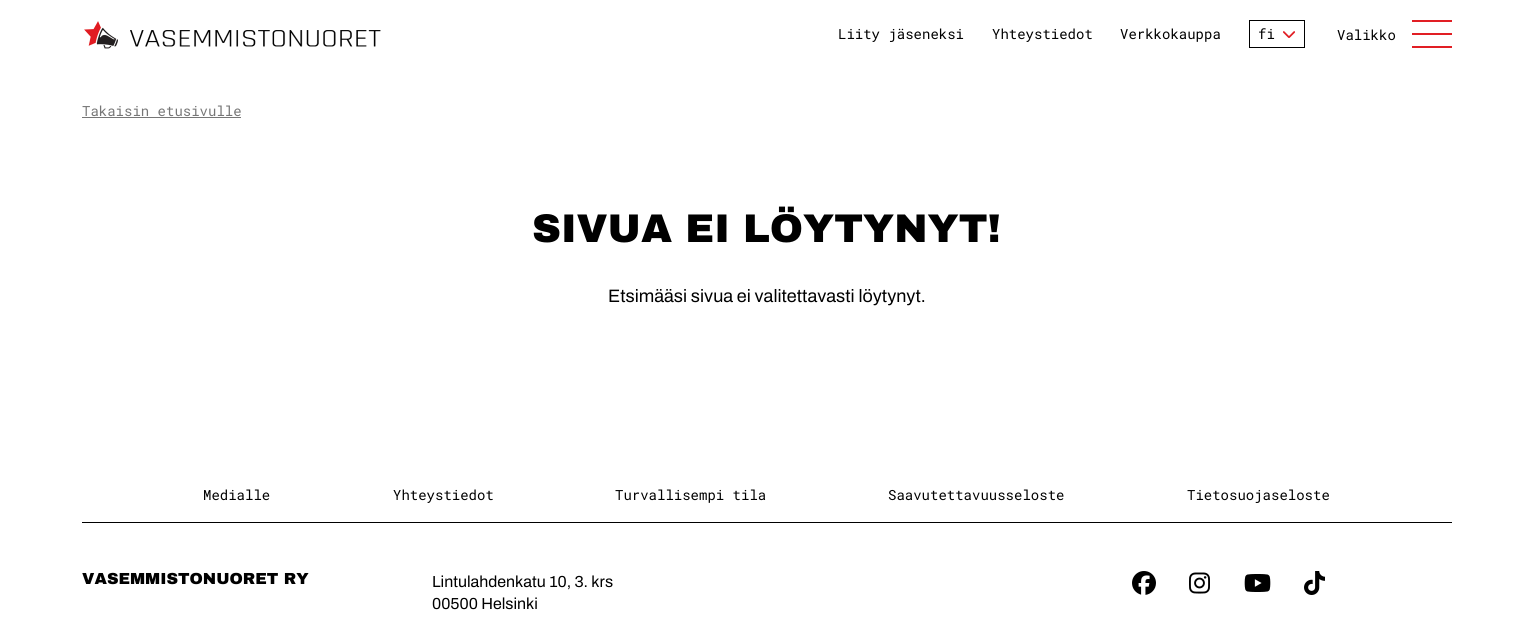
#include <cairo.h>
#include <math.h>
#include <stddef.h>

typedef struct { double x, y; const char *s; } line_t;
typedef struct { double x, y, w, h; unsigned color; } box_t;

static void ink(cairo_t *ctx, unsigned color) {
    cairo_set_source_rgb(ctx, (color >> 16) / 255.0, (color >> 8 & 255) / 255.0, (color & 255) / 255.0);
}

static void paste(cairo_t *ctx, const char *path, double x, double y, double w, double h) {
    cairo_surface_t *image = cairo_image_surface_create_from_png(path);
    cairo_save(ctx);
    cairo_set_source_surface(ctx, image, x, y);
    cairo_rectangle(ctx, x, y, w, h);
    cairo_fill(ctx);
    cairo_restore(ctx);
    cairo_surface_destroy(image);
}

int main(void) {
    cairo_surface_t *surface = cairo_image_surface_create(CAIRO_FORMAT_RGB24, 1533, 628);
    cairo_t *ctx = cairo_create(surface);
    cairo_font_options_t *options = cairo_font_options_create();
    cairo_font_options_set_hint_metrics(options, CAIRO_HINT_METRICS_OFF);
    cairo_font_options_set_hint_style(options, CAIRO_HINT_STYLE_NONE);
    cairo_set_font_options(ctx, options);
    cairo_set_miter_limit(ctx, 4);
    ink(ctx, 0xFFFFFF);
    cairo_paint(ctx);
    paste(ctx, "media/1.png", 84, 21, 297, 28);
    cairo_select_font_face(ctx, "Roboto Mono", CAIRO_FONT_SLANT_NORMAL, CAIRO_FONT_WEIGHT_NORMAL);
    cairo_set_font_size(ctx, 14);
    ink(ctx, 0x000000);
    {
        static const line_t items[] = {
            {838, 39, "Liity jäseneksi"},
            {992, 39, "Yhteystiedot"},
            {1120, 39, "Verkkokauppa"},
        };
        for (size_t i = 0; i < sizeof items / sizeof *items; i++) {
            cairo_move_to(ctx, items[i].x, items[i].y);
            cairo_show_text(ctx, items[i].s);
        }
    }
    cairo_rectangle(ctx, 1249.5, 20.5, 55, 27);
    cairo_set_line_width(ctx, 1);
    cairo_stroke(ctx);
    cairo_move_to(ctx, 1258, 39);
    cairo_show_text(ctx, "fi");
    paste(ctx, "media/2.png", 1283, 31, 12, 7);
    cairo_move_to(ctx, 1337, 40);
    cairo_show_text(ctx, "Valikko");
    {
        static const box_t items[] = {
            {1412, 20, 40, 2, 0xE11E24},
            {1412, 33, 40, 2, 0xE11E24},
            {1412, 46, 40, 2, 0xE11E24},
        };
        for (size_t i = 0; i < sizeof items / sizeof *items; i++) {
            ink(ctx, items[i].color);
            cairo_rectangle(ctx, items[i].x, items[i].y, items[i].w, items[i].h);
            cairo_fill(ctx);
        }
    }
    ink(ctx, 0x767676);
    cairo_move_to(ctx, 82, 116);
    cairo_show_text(ctx, "Takaisin etusivulle");
    cairo_rectangle(ctx, 82, 117, 159, 1);
    cairo_fill(ctx);
    cairo_select_font_face(ctx, "Archivo Black Black", CAIRO_FONT_SLANT_NORMAL, CAIRO_FONT_WEIGHT_NORMAL);
    cairo_set_font_size(ctx, 40);
    ink(ctx, 0x000000);
    cairo_move_to(ctx, 532, 242);
    cairo_show_text(ctx, "SIVUA EI LÖYTYNYT!");
    cairo_select_font_face(ctx, "Archivo SemiBold", CAIRO_FONT_SLANT_NORMAL, CAIRO_FONT_WEIGHT_NORMAL);
    cairo_set_font_size(ctx, 18);
    cairo_move_to(ctx, 608, 302);
    cairo_show_text(ctx, "Etsimääsi sivua ei valitettavasti löytynyt.");
    cairo_rectangle(ctx, 82, 522, 1370, 1);
    cairo_fill(ctx);
    cairo_select_font_face(ctx, "Roboto Mono", CAIRO_FONT_SLANT_NORMAL, CAIRO_FONT_WEIGHT_NORMAL);
    cairo_set_font_size(ctx, 14);
    {
        static const line_t items[] = {
            {203, 500, "Medialle"},
            {393, 500, "Yhteystiedot"},
            {615, 500, "Turvallisempi tila"},
            {888, 500, "Saavutettavuusseloste"},
            {1187, 500, "Tietosuojaseloste"},
        };
        for (size_t i = 0; i < sizeof items / sizeof *items; i++) {
            cairo_move_to(ctx, items[i].x, items[i].y);
            cairo_show_text(ctx, items[i].s);
        }
    }
    cairo_select_font_face(ctx, "Archivo Black Black", CAIRO_FONT_SLANT_NORMAL, CAIRO_FONT_WEIGHT_NORMAL);
    cairo_set_font_size(ctx, 16);
    cairo_move_to(ctx, 82, 584);
    cairo_show_text(ctx, "VASEMMISTONUORET RY");
    cairo_select_font_face(ctx, "Archivo SemiBold", CAIRO_FONT_SLANT_NORMAL, CAIRO_FONT_WEIGHT_NORMAL);
    cairo_move_to(ctx, 432, 587);
    cairo_show_text(ctx, "Lintulahdenkatu 10, 3. krs");
    cairo_move_to(ctx, 432, 609);
    cairo_show_text(ctx, "00500 Helsinki");
    paste(ctx, "media/3.png", 1132, 571, 24, 24);
    paste(ctx, "media/4.png", 1189, 572, 21, 22);
    paste(ctx, "media/5.png", 1244, 574, 27, 18);
    paste(ctx, "media/6.png", 1304, 571, 21, 24);
    cairo_surface_write_to_png(surface, "image.png");
    cairo_font_options_destroy(options);
    cairo_destroy(ctx);
    cairo_surface_destroy(surface);
    return 0;
}
